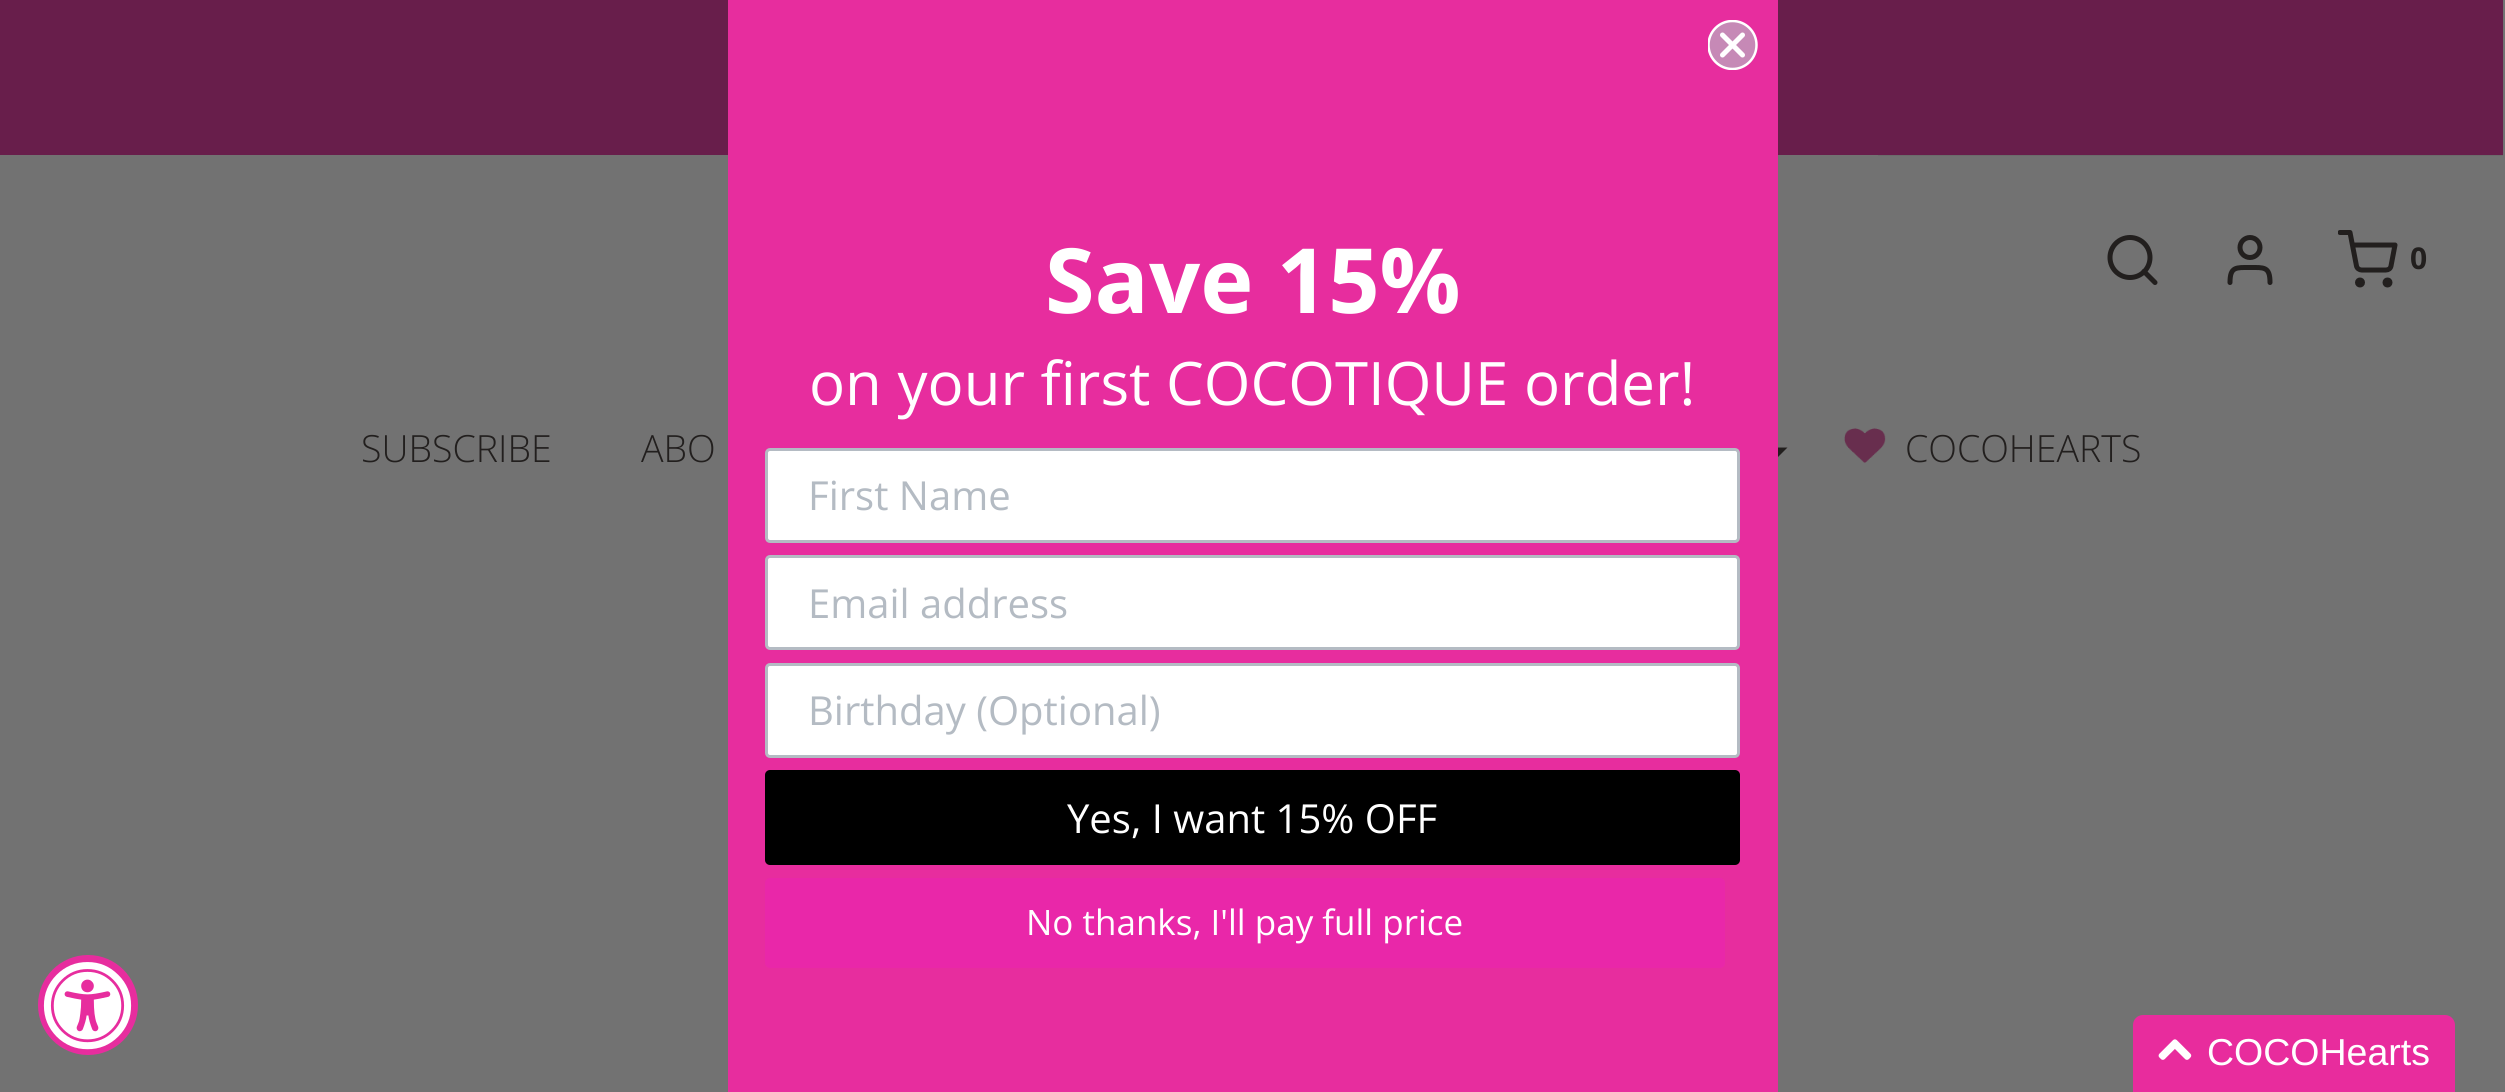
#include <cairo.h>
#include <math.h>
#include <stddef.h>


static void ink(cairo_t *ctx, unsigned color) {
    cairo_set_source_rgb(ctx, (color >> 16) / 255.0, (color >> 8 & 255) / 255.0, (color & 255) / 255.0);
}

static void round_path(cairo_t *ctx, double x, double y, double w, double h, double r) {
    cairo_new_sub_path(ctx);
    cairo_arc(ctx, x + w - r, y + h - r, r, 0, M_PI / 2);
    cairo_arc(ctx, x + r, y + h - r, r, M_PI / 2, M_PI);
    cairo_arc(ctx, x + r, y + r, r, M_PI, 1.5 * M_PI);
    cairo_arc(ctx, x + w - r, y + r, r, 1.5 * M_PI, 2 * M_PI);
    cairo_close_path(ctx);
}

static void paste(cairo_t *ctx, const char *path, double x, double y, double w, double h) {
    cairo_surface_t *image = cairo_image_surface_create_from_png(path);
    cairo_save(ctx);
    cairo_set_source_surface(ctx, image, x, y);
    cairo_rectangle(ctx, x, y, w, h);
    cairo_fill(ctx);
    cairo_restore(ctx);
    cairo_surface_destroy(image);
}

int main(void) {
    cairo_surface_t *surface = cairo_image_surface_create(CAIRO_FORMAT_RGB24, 2505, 1092);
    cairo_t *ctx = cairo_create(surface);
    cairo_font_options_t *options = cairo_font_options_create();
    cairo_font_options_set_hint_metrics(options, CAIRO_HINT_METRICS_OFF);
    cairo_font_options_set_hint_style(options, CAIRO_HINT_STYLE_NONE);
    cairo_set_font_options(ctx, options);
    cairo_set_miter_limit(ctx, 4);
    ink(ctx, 0x727272);
    cairo_paint(ctx);
    ink(ctx, 0x681E4B);
    cairo_rectangle(ctx, 0, 0, 2503, 155);
    cairo_fill(ctx);
    ink(ctx, 0x6B6B6B);
    cairo_rectangle(ctx, 1878, 155, 625, 1);
    cairo_fill(ctx);
    cairo_arc(ctx, 2130, 257.5, 20, 0, 2 * M_PI);
    ink(ctx, 0x221F1E);
    cairo_set_line_width(ctx, 5);
    cairo_stroke(ctx);
    cairo_new_path(ctx);
    cairo_move_to(ctx, 2155, 282.5);
    cairo_line_to(ctx, 2144, 271.5);
    cairo_set_line_cap(ctx, CAIRO_LINE_CAP_ROUND);
    cairo_set_line_join(ctx, CAIRO_LINE_JOIN_ROUND);
    cairo_stroke(ctx);
    cairo_new_path(ctx);
    cairo_move_to(ctx, 2270, 282.5);
    cairo_curve_to(ctx, 2270, 266.5, 2264, 267.5, 2250, 267.5);
    cairo_curve_to(ctx, 2236, 267.5, 2230, 266.5, 2230, 282.5);
    cairo_stroke(ctx);
    cairo_arc(ctx, 2250, 247.5, 10, 0, 2 * M_PI);
    cairo_set_line_cap(ctx, CAIRO_LINE_CAP_BUTT);
    cairo_set_line_join(ctx, CAIRO_LINE_JOIN_MITER);
    cairo_stroke(ctx);
    cairo_arc(ctx, 2360, 282.5, 2.5, 0, 2 * M_PI);
    cairo_stroke(ctx);
    cairo_arc(ctx, 2387.5, 282.5, 2.5, 0, 2 * M_PI);
    cairo_stroke(ctx);
    cairo_save(ctx);
    cairo_rectangle(ctx, 2338, 230, 60, 60);
    cairo_clip(ctx);
    cairo_new_path(ctx);
    cairo_move_to(ctx, 2340, 232.5);
    cairo_line_to(ctx, 2350, 232.5);
    cairo_line_to(ctx, 2356.5, 266);
    cairo_curve_to(ctx, 2357, 268.5, 2359.5, 270, 2361.5, 270);
    cairo_line_to(ctx, 2386, 270);
    cairo_curve_to(ctx, 2388.5, 270, 2390.5, 268.5, 2391, 266);
    cairo_line_to(ctx, 2395, 245);
    cairo_line_to(ctx, 2352.5, 245);
    cairo_set_line_cap(ctx, CAIRO_LINE_CAP_ROUND);
    cairo_set_line_join(ctx, CAIRO_LINE_JOIN_ROUND);
    cairo_stroke(ctx);
    cairo_restore(ctx);
    cairo_select_font_face(ctx, "Open Sans", CAIRO_FONT_SLANT_NORMAL, CAIRO_FONT_WEIGHT_BOLD);
    cairo_set_font_size(ctx, 30);
    cairo_move_to(ctx, 2410, 269);
    cairo_show_text(ctx, "0");
    cairo_select_font_face(ctx, "Open Sans Light", CAIRO_FONT_SLANT_NORMAL, CAIRO_FONT_WEIGHT_NORMAL);
    cairo_set_font_size(ctx, 37.5);
    cairo_move_to(ctx, 361, 462);
    cairo_show_text(ctx, "SUBSCRIBE");
    cairo_move_to(ctx, 641, 462);
    cairo_show_text(ctx, "ABO");
    cairo_new_path(ctx);
    cairo_move_to(ctx, 1767.5, 447.5);
    cairo_line_to(ctx, 1787.5, 447.5);
    cairo_line_to(ctx, 1777.5, 457.5);
    cairo_close_path(ctx);
    cairo_fill(ctx);
    paste(ctx, "media/1.png", 1844, 428, 42, 35);
    cairo_move_to(ctx, 1905, 462);
    cairo_show_text(ctx, "COCOHEARTS");
    ink(ctx, 0xE72D9E);
    cairo_rectangle(ctx, 728, 0, 1050, 1092);
    cairo_fill(ctx);
    ink(ctx, 0xC689B6);
    cairo_arc(ctx, 1732.5, 45, 24, 0, 2 * M_PI);
    cairo_fill(ctx);
    cairo_save(ctx);
    cairo_rectangle(ctx, 1708, 20, 50, 50);
    cairo_clip(ctx);
    cairo_arc(ctx, 1732.5, 45, 24, 0, 2 * M_PI);
    ink(ctx, 0xFFFFFF);
    cairo_set_line_width(ctx, 2.5);
    cairo_stroke(ctx);
    cairo_restore(ctx);
    cairo_new_path(ctx);
    cairo_move_to(ctx, 1722.5, 35);
    cairo_line_to(ctx, 1742.5, 55);
    cairo_move_to(ctx, 1722.5, 55);
    cairo_line_to(ctx, 1742.5, 35);
    cairo_close_path(ctx);
    ink(ctx, 0xFFFFFF);
    cairo_set_line_cap(ctx, CAIRO_LINE_CAP_ROUND);
    cairo_set_line_join(ctx, CAIRO_LINE_JOIN_ROUND);
    cairo_stroke(ctx);
    cairo_select_font_face(ctx, "Open Sans", CAIRO_FONT_SLANT_NORMAL, CAIRO_FONT_WEIGHT_BOLD);
    cairo_set_font_size(ctx, 90);
    cairo_move_to(ctx, 1045, 313);
    cairo_show_text(ctx, "Save 15%");
    cairo_select_font_face(ctx, "Open Sans", CAIRO_FONT_SLANT_NORMAL, CAIRO_FONT_WEIGHT_NORMAL);
    cairo_set_font_size(ctx, 60);
    cairo_move_to(ctx, 809, 405);
    cairo_show_text(ctx, "on your first COCOTIQUE order!");
    round_path(ctx, 766.5, 449.5, 972, 92, 3.5);
    cairo_fill_preserve(ctx);
    ink(ctx, 0xB4BBC3);
    cairo_set_line_width(ctx, 3);
    cairo_set_line_cap(ctx, CAIRO_LINE_CAP_BUTT);
    cairo_set_line_join(ctx, CAIRO_LINE_JOIN_MITER);
    cairo_stroke(ctx);
    cairo_set_font_size(ctx, 40);
    cairo_move_to(ctx, 808, 510);
    cairo_show_text(ctx, "First Name");
    ink(ctx, 0xFFFFFF);
    round_path(ctx, 766.5, 556.5, 972, 92, 3.5);
    cairo_fill_preserve(ctx);
    ink(ctx, 0xB4BBC3);
    cairo_stroke(ctx);
    cairo_move_to(ctx, 808, 618);
    cairo_show_text(ctx, "Email address");
    ink(ctx, 0xFFFFFF);
    round_path(ctx, 766.5, 664.5, 972, 92, 3.5);
    cairo_fill_preserve(ctx);
    ink(ctx, 0xB4BBC3);
    cairo_stroke(ctx);
    cairo_move_to(ctx, 808, 725);
    cairo_show_text(ctx, "Birthday (Optional)");
    ink(ctx, 0x000000);
    round_path(ctx, 765, 770, 975, 95, 5);
    cairo_fill(ctx);
    ink(ctx, 0xFFFFFF);
    cairo_move_to(ctx, 1067, 833);
    cairo_show_text(ctx, "Yes, I want 15% OFF");
    ink(ctx, 0xE927A9);
    round_path(ctx, 765, 878, 960, 90, 5);
    cairo_fill(ctx);
    cairo_set_font_size(ctx, 35);
    ink(ctx, 0xFFFFFF);
    cairo_move_to(ctx, 1026, 935);
    cairo_show_text(ctx, "No thanks, I'll pay full price");
    ink(ctx, 0xE72D9E);
    cairo_new_path(ctx);
    cairo_arc(ctx, 88, 1005, 50, 0, 2 * M_PI);
    cairo_fill(ctx);
    paste(ctx, "media/2.png", 43, 962, 89, 88);
    ink(ctx, 0xE82C9D);
    cairo_new_path(ctx);
    cairo_move_to(ctx, 2143, 1015);
    cairo_line_to(ctx, 2445, 1015);
    cairo_curve_to(ctx, 2450.5, 1015, 2455, 1019.5, 2455, 1025);
    cairo_line_to(ctx, 2455, 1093);
    cairo_line_to(ctx, 2133, 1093);
    cairo_line_to(ctx, 2133, 1025);
    cairo_curve_to(ctx, 2133, 1019.5, 2137.5, 1015, 2143, 1015);
    cairo_close_path(ctx);
    cairo_fill(ctx);
    paste(ctx, "media/3.png", 2158, 1039, 34, 21);
    cairo_select_font_face(ctx, "Liberation Sans", CAIRO_FONT_SLANT_NORMAL, CAIRO_FONT_WEIGHT_NORMAL);
    cairo_set_font_size(ctx, 37.5);
    ink(ctx, 0xFFFFFF);
    cairo_move_to(ctx, 2207, 1065);
    cairo_show_text(ctx, "COCOHearts");
    cairo_surface_write_to_png(surface, "image.png");
    cairo_font_options_destroy(options);
    cairo_destroy(ctx);
    cairo_surface_destroy(surface);
    return 0;
}
